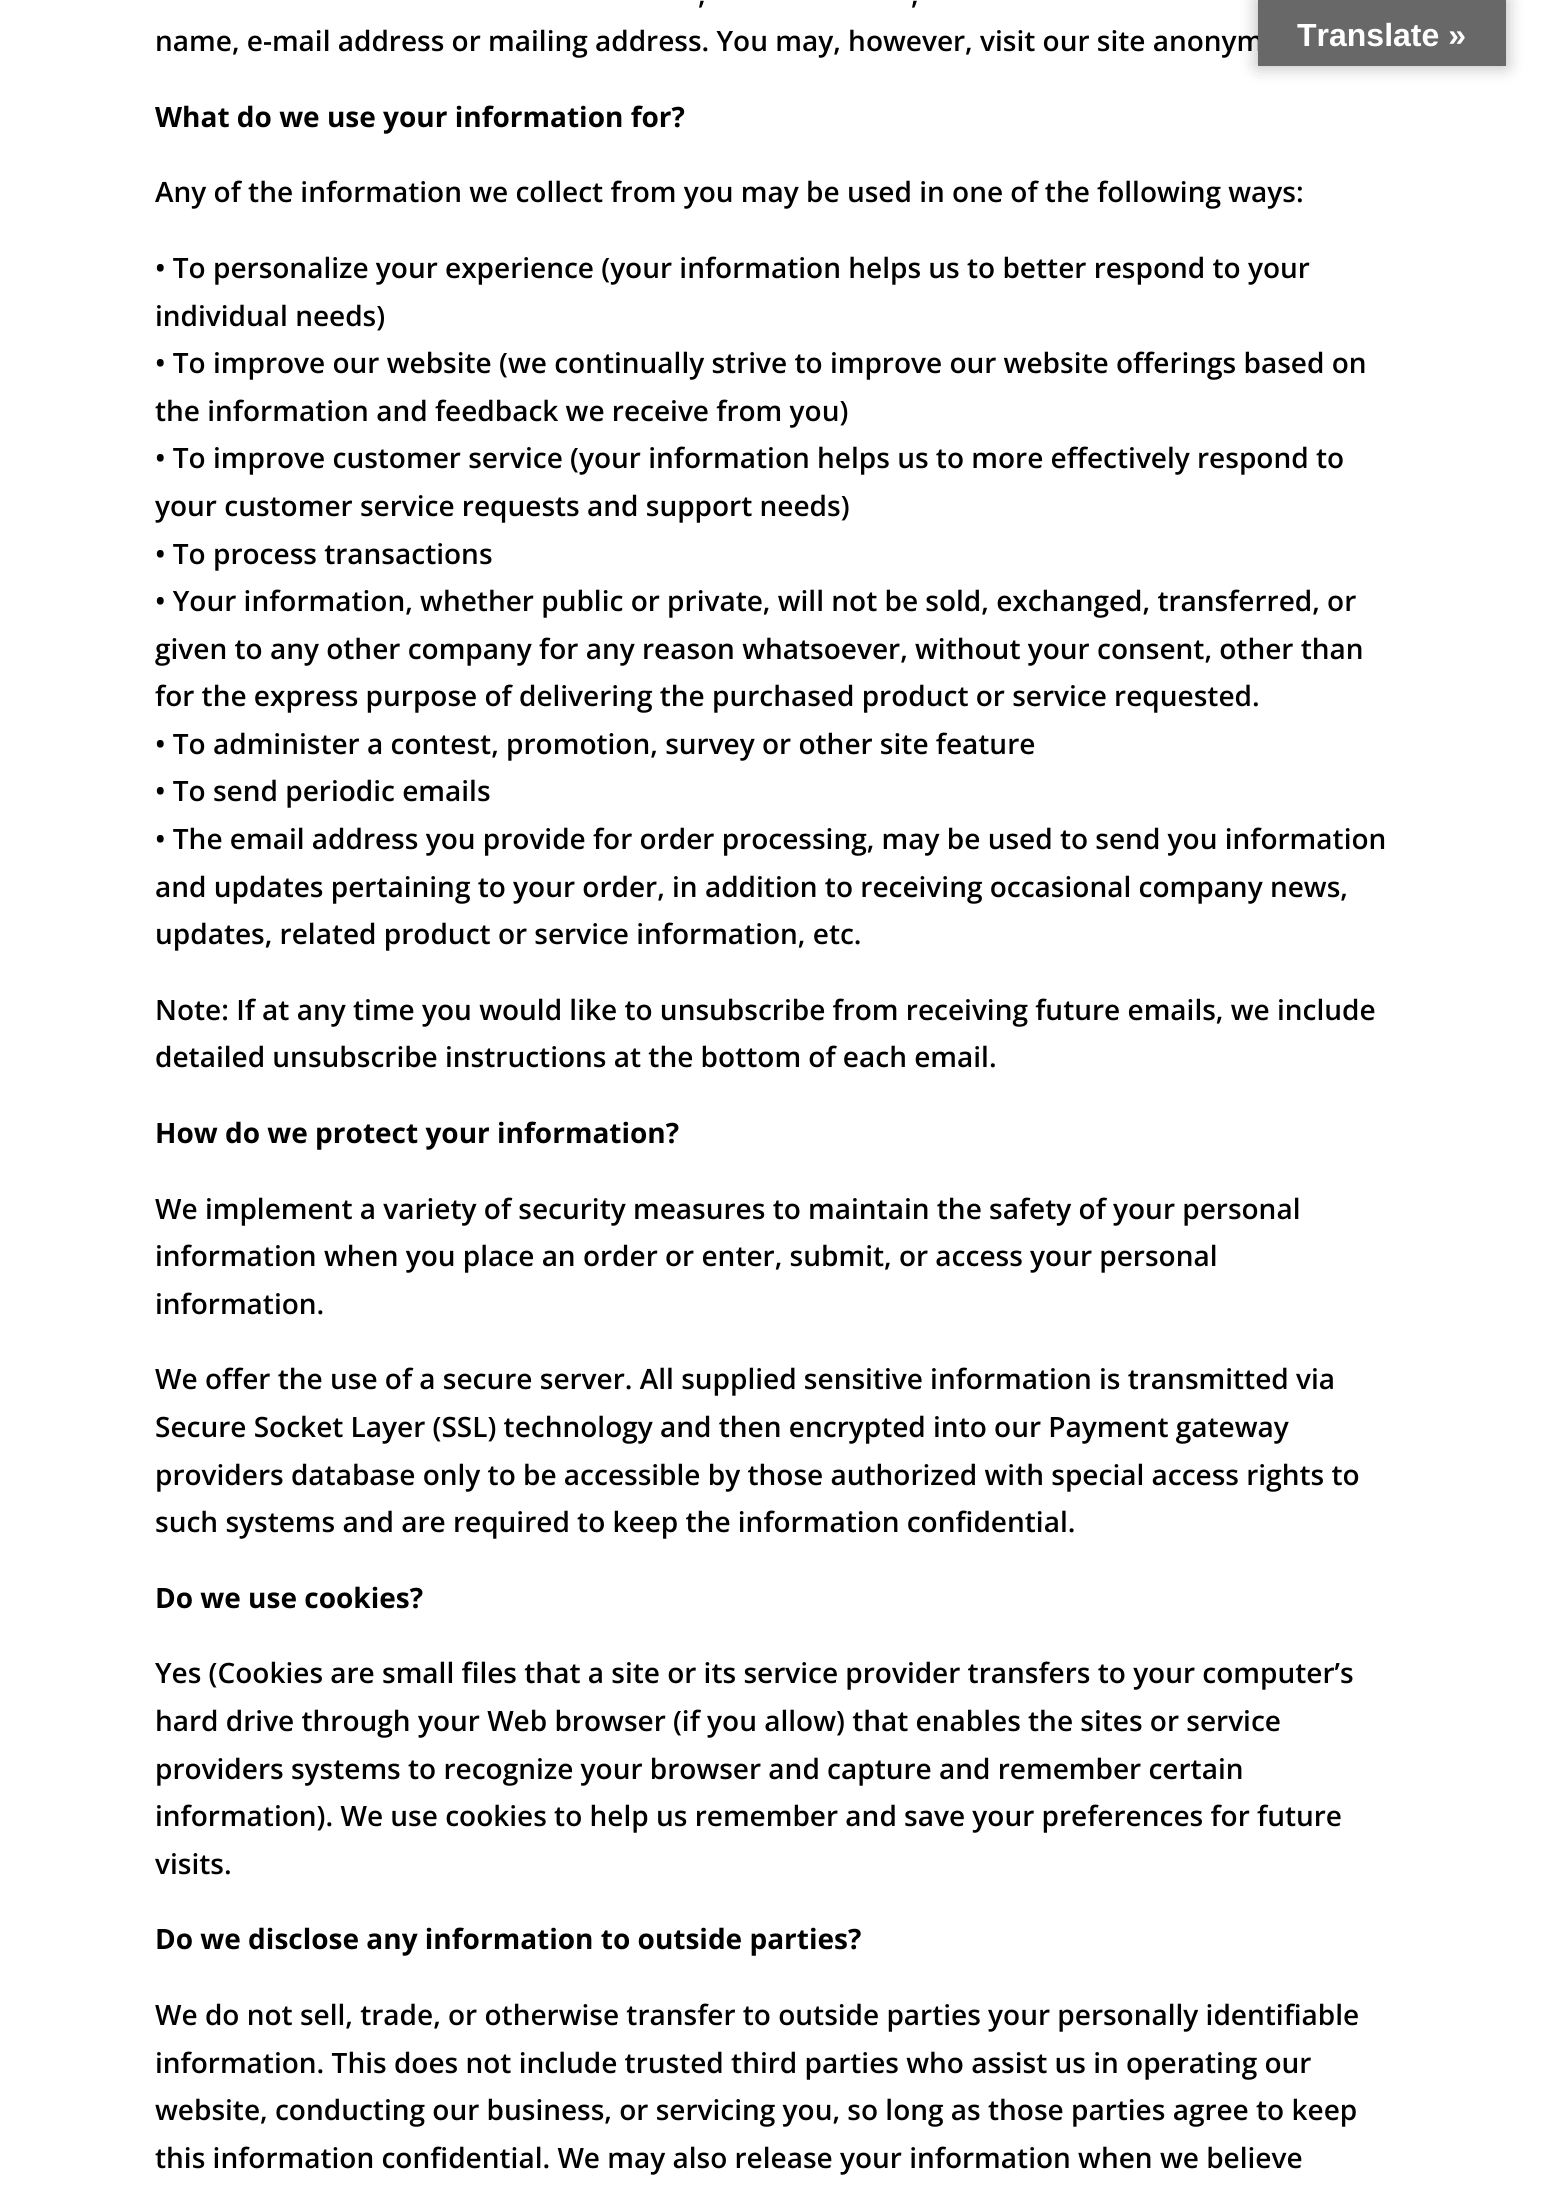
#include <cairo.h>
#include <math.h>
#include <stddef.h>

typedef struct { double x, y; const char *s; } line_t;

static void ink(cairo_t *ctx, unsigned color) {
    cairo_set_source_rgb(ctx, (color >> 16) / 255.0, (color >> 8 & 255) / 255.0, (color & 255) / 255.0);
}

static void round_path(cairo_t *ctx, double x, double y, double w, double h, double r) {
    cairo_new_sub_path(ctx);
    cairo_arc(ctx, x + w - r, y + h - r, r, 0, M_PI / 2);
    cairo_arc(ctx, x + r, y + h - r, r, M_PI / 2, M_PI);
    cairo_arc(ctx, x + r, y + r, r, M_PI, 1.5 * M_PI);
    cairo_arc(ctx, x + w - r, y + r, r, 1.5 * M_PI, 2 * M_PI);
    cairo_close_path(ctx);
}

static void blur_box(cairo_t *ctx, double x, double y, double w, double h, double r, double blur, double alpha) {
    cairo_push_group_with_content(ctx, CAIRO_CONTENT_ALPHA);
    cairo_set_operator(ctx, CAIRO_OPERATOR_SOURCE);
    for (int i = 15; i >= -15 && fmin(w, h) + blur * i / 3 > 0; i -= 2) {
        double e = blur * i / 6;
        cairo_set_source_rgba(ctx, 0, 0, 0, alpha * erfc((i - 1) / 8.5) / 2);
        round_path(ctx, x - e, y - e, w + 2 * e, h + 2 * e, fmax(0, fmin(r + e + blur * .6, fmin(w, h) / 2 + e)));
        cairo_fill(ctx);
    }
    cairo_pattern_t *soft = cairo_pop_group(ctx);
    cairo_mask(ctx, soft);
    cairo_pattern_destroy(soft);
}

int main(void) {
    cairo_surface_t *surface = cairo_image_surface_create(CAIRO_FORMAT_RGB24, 1546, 2188);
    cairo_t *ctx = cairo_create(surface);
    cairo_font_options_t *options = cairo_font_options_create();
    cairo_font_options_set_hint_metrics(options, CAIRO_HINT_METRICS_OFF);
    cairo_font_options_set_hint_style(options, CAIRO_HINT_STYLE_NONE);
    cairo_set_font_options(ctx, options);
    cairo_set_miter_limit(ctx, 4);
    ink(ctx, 0xFFFFFF);
    cairo_paint(ctx);
    cairo_select_font_face(ctx, "Open Sans SemiBold", CAIRO_FONT_SLANT_NORMAL, CAIRO_FONT_WEIGHT_NORMAL);
    cairo_set_font_size(ctx, 28);
    ink(ctx, 0x000000);
    {
        static const line_t items[] = {
            {698, 4, ","},
            {911, 4, ","},
            {155, 51, "name, e-mail address or mailing address. You may, however, visit our site anonym"},
        };
        for (size_t i = 0; i < sizeof items / sizeof *items; i++) {
            cairo_move_to(ctx, items[i].x, items[i].y);
            cairo_show_text(ctx, items[i].s);
        }
    }
    cairo_select_font_face(ctx, "Open Sans", CAIRO_FONT_SLANT_NORMAL, CAIRO_FONT_WEIGHT_BOLD);
    cairo_move_to(ctx, 155, 127);
    cairo_show_text(ctx, "What do we use your information for?");
    cairo_select_font_face(ctx, "Open Sans SemiBold", CAIRO_FONT_SLANT_NORMAL, CAIRO_FONT_WEIGHT_NORMAL);
    {
        static const line_t items[] = {
            {155, 202, "Any of the information we collect from you may be used in one of the following ways:"},
            {155, 278, "• To personalize your experience (your information helps us to better respond to your"},
            {155, 326, "individual needs)"},
            {155, 373, "• To improve our website (we continually strive to improve our website offerings based on"},
            {155, 421, "the information and feedback we receive from you)"},
            {155, 468, "• To improve customer service (your information helps us to more effectively respond to"},
            {155, 516, "your customer service requests and support needs)"},
            {155, 564, "• To process transactions"},
            {155, 611, "• Your information, whether public or private, will not be sold, exchanged, transferred, or"},
            {155, 659, "given to any other company for any reason whatsoever, without your consent, other than"},
            {155, 706, "for the express purpose of delivering the purchased product or service requested."},
            {155, 754, "• To administer a contest, promotion, survey or other site feature"},
            {155, 801, "• To send periodic emails"},
            {155, 849, "• The email address you provide for order processing, may be used to send you information"},
            {155, 897, "and updates pertaining to your order, in addition to receiving occasional company news,"},
            {155, 944, "updates, related product or service information, etc."},
            {155, 1020, "Note: If at any time you would like to unsubscribe from receiving future emails, we include"},
            {155, 1067, "detailed unsubscribe instructions at the bottom of each email."},
        };
        for (size_t i = 0; i < sizeof items / sizeof *items; i++) {
            cairo_move_to(ctx, items[i].x, items[i].y);
            cairo_show_text(ctx, items[i].s);
        }
    }
    cairo_select_font_face(ctx, "Open Sans", CAIRO_FONT_SLANT_NORMAL, CAIRO_FONT_WEIGHT_BOLD);
    cairo_move_to(ctx, 155, 1143);
    cairo_show_text(ctx, "How do we protect your information?");
    cairo_select_font_face(ctx, "Open Sans SemiBold", CAIRO_FONT_SLANT_NORMAL, CAIRO_FONT_WEIGHT_NORMAL);
    {
        static const line_t items[] = {
            {155, 1219, "We implement a variety of security measures to maintain the safety of your personal"},
            {155, 1266, "information when you place an order or enter, submit, or access your personal"},
            {155, 1314, "information."},
            {155, 1389, "We offer the use of a secure server. All supplied sensitive information is transmitted via"},
            {155, 1437, "Secure Socket Layer (SSL) technology and then encrypted into our Payment gateway"},
            {155, 1485, "providers database only to be accessible by those authorized with special access rights to"},
            {155, 1532, "such systems and are required to keep the information confidential."},
        };
        for (size_t i = 0; i < sizeof items / sizeof *items; i++) {
            cairo_move_to(ctx, items[i].x, items[i].y);
            cairo_show_text(ctx, items[i].s);
        }
    }
    cairo_select_font_face(ctx, "Open Sans", CAIRO_FONT_SLANT_NORMAL, CAIRO_FONT_WEIGHT_BOLD);
    cairo_move_to(ctx, 155, 1608);
    cairo_show_text(ctx, "Do we use cookies?");
    cairo_select_font_face(ctx, "Open Sans SemiBold", CAIRO_FONT_SLANT_NORMAL, CAIRO_FONT_WEIGHT_NORMAL);
    {
        static const line_t items[] = {
            {155, 1683, "Yes (Cookies are small files that a site or its service provider transfers to your computer’s"},
            {155, 1731, "hard drive through your Web browser (if you allow) that enables the sites or service"},
            {155, 1779, "providers systems to recognize your browser and capture and remember certain"},
            {155, 1826, "information). We use cookies to help us remember and save your preferences for future"},
            {155, 1874, "visits."},
        };
        for (size_t i = 0; i < sizeof items / sizeof *items; i++) {
            cairo_move_to(ctx, items[i].x, items[i].y);
            cairo_show_text(ctx, items[i].s);
        }
    }
    cairo_select_font_face(ctx, "Open Sans", CAIRO_FONT_SLANT_NORMAL, CAIRO_FONT_WEIGHT_BOLD);
    cairo_move_to(ctx, 155, 1949);
    cairo_show_text(ctx, "Do we disclose any information to outside parties?");
    cairo_select_font_face(ctx, "Open Sans SemiBold", CAIRO_FONT_SLANT_NORMAL, CAIRO_FONT_WEIGHT_NORMAL);
    {
        static const line_t items[] = {
            {155, 2025, "We do not sell, trade, or otherwise transfer to outside parties your personally identifiable"},
            {155, 2073, "information. This does not include trusted third parties who assist us in operating our"},
            {155, 2120, "website, conducting our business, or servicing you, so long as those parties agree to keep"},
            {155, 2168, "this information confidential. We may also release your information when we believe"},
        };
        for (size_t i = 0; i < sizeof items / sizeof *items; i++) {
            cairo_move_to(ctx, items[i].x, items[i].y);
            cairo_show_text(ctx, items[i].s);
        }
    }
    ink(ctx, 0x000000);
    blur_box(ctx, 1258, 0, 248, 66, 0, 9, 0.3);
    ink(ctx, 0x686868);
    cairo_rectangle(ctx, 1258, 0, 248, 66);
    cairo_fill(ctx);
    cairo_select_font_face(ctx, "Liberation Sans", CAIRO_FONT_SLANT_NORMAL, CAIRO_FONT_WEIGHT_BOLD);
    cairo_set_font_size(ctx, 32);
    ink(ctx, 0xFFFFFF);
    cairo_move_to(ctx, 1297, 46);
    cairo_show_text(ctx, "Translate »");
    cairo_surface_write_to_png(surface, "image.png");
    cairo_font_options_destroy(options);
    cairo_destroy(ctx);
    cairo_surface_destroy(surface);
    return 0;
}
